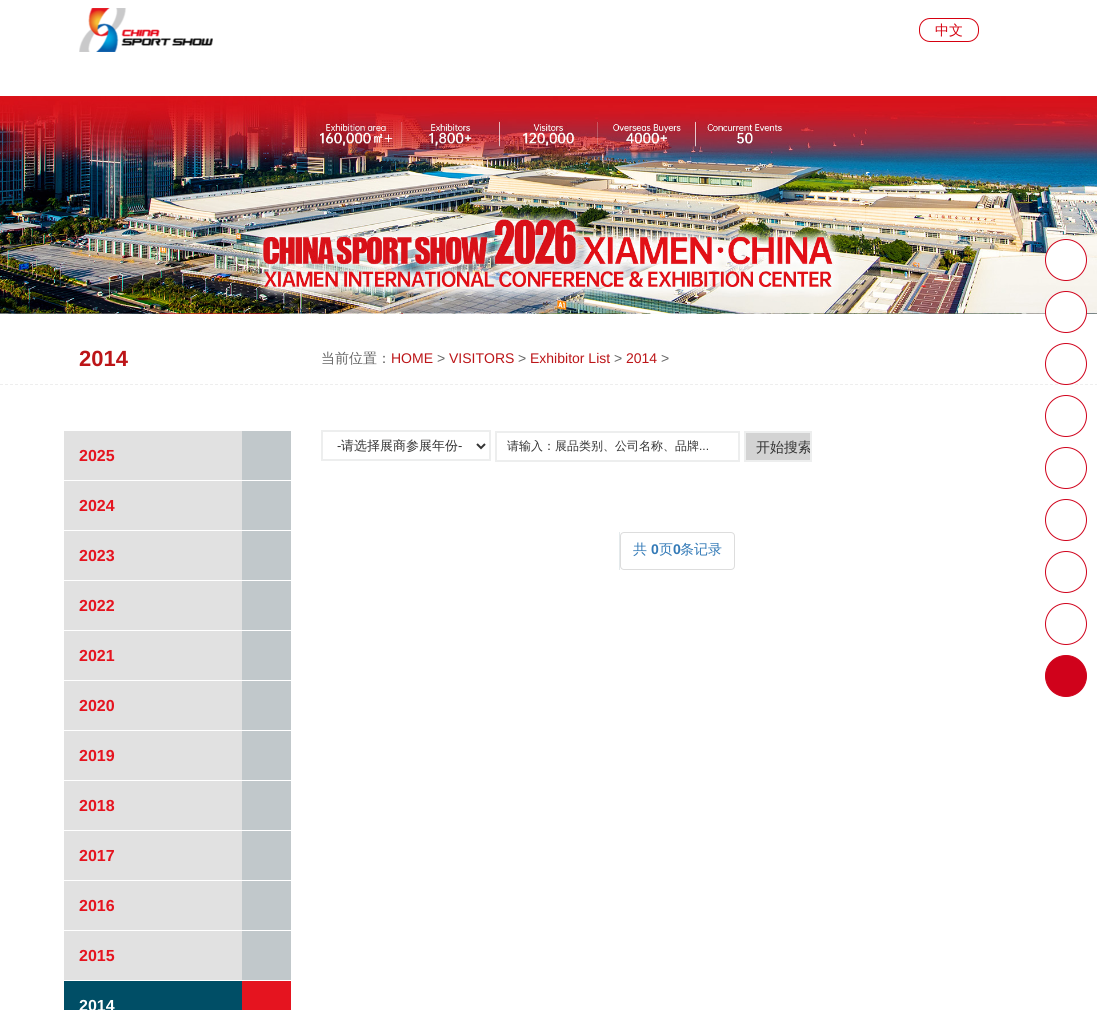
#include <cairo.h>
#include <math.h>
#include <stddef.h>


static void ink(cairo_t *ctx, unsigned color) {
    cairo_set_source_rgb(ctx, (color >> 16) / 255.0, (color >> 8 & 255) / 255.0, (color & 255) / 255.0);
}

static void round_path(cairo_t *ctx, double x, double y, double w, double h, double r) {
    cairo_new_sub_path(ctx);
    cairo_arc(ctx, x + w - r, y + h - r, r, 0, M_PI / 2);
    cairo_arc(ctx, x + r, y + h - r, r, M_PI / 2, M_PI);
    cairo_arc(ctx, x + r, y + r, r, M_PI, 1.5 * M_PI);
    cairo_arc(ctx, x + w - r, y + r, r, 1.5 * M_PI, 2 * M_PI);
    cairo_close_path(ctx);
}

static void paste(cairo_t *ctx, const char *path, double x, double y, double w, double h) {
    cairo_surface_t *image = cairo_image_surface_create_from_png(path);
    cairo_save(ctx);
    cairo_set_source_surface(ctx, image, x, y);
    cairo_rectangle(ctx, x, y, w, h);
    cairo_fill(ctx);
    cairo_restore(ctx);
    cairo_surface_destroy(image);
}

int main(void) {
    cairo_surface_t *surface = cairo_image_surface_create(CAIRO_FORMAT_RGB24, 1097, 1010);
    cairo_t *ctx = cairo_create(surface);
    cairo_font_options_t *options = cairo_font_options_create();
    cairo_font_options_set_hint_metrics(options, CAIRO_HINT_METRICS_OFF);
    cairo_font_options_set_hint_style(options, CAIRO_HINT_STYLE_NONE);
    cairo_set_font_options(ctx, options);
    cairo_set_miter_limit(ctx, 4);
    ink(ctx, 0xFFFFFF);
    cairo_paint(ctx);
    paste(ctx, "media/1.png", 79, 8, 134, 44);
    round_path(ctx, 919.5, 18.5, 59, 23, 10.5);
    ink(ctx, 0xD6000F);
    cairo_set_line_width(ctx, 1);
    cairo_stroke(ctx);
    cairo_select_font_face(ctx, "WenQuanYi Zen Hei Medium", CAIRO_FONT_SLANT_NORMAL, CAIRO_FONT_WEIGHT_NORMAL);
    cairo_set_font_size(ctx, 14);
    cairo_move_to(ctx, 935, 35);
    cairo_show_text(ctx, "中文");
    paste(ctx, "media/2.png", 0, 96, 1097, 218);
    cairo_new_path(ctx);
    cairo_move_to(ctx, 0, 384.5);
    cairo_line_to(ctx, 1097, 384.5);
    ink(ctx, 0xEEEEEE);
    cairo_set_dash(ctx, (double[]){3, 2}, 2, 0);
    cairo_stroke(ctx);
    cairo_select_font_face(ctx, "Liberation Sans", CAIRO_FONT_SLANT_NORMAL, CAIRO_FONT_WEIGHT_BOLD);
    cairo_set_font_size(ctx, 22);
    ink(ctx, 0xBC1518);
    cairo_move_to(ctx, 79, 366);
    cairo_show_text(ctx, "2014");
    cairo_select_font_face(ctx, "WenQuanYi Zen Hei Medium", CAIRO_FONT_SLANT_NORMAL, CAIRO_FONT_WEIGHT_NORMAL);
    cairo_set_font_size(ctx, 14);
    ink(ctx, 0x666666);
    cairo_move_to(ctx, 321, 363);
    cairo_show_text(ctx, "当前位置：");
    cairo_select_font_face(ctx, "Liberation Sans", CAIRO_FONT_SLANT_NORMAL, CAIRO_FONT_WEIGHT_NORMAL);
    ink(ctx, 0xBC1518);
    cairo_move_to(ctx, 391, 363);
    cairo_show_text(ctx, "HOME");
    ink(ctx, 0x666666);
    cairo_move_to(ctx, 437, 363);
    cairo_show_text(ctx, ">");
    ink(ctx, 0xBC1518);
    cairo_move_to(ctx, 449, 363);
    cairo_show_text(ctx, "VISITORS");
    ink(ctx, 0x666666);
    cairo_move_to(ctx, 518, 363);
    cairo_show_text(ctx, ">");
    ink(ctx, 0xBC1518);
    cairo_move_to(ctx, 530, 363);
    cairo_show_text(ctx, "Exhibitor List");
    ink(ctx, 0x666666);
    cairo_move_to(ctx, 614, 363);
    cairo_show_text(ctx, ">");
    ink(ctx, 0xBC1518);
    cairo_move_to(ctx, 626, 363);
    cairo_show_text(ctx, "2014");
    ink(ctx, 0x666666);
    cairo_move_to(ctx, 661, 363);
    cairo_show_text(ctx, ">");
    ink(ctx, 0xFFFFFF);
    cairo_new_path(ctx);
    cairo_arc(ctx, 1066, 260, 20.5, 0, 2 * M_PI);
    cairo_fill_preserve(ctx);
    ink(ctx, 0xD0021B);
    cairo_set_dash(ctx, NULL, 0, 0);
    cairo_stroke(ctx);
    ink(ctx, 0xFFFFFF);
    cairo_arc(ctx, 1066, 312, 20.5, 0, 2 * M_PI);
    cairo_fill_preserve(ctx);
    ink(ctx, 0xD0021B);
    cairo_stroke(ctx);
    ink(ctx, 0xFFFFFF);
    cairo_arc(ctx, 1066, 364, 20.5, 0, 2 * M_PI);
    cairo_fill_preserve(ctx);
    ink(ctx, 0xD0021B);
    cairo_stroke(ctx);
    cairo_arc(ctx, 1066, 416, 20.5, 0, 2 * M_PI);
    cairo_stroke(ctx);
    cairo_arc(ctx, 1066, 468, 20.5, 0, 2 * M_PI);
    cairo_stroke(ctx);
    cairo_arc(ctx, 1066, 520, 20.5, 0, 2 * M_PI);
    cairo_stroke(ctx);
    cairo_arc(ctx, 1066, 572, 20.5, 0, 2 * M_PI);
    cairo_stroke(ctx);
    cairo_arc(ctx, 1066, 624, 20.5, 0, 2 * M_PI);
    cairo_stroke(ctx);
    cairo_arc(ctx, 1066, 676, 20.5, 0, 2 * M_PI);
    cairo_fill_preserve(ctx);
    cairo_stroke(ctx);
    ink(ctx, 0xE1E1E1);
    cairo_rectangle(ctx, 64, 431, 178, 49);
    cairo_fill(ctx);
    cairo_select_font_face(ctx, "Liberation Sans", CAIRO_FONT_SLANT_NORMAL, CAIRO_FONT_WEIGHT_BOLD);
    cairo_set_font_size(ctx, 16);
    ink(ctx, 0xE5141F);
    cairo_move_to(ctx, 79, 461);
    cairo_show_text(ctx, "2025");
    ink(ctx, 0xC1C8CB);
    cairo_rectangle(ctx, 242, 431, 49, 49);
    cairo_fill(ctx);
    ink(ctx, 0xE1E1E1);
    cairo_rectangle(ctx, 64, 481, 178, 49);
    cairo_fill(ctx);
    ink(ctx, 0xE5141F);
    cairo_move_to(ctx, 79, 511);
    cairo_show_text(ctx, "2024");
    ink(ctx, 0xC1C8CB);
    cairo_rectangle(ctx, 242, 481, 49, 49);
    cairo_fill(ctx);
    ink(ctx, 0xE1E1E1);
    cairo_rectangle(ctx, 64, 531, 178, 49);
    cairo_fill(ctx);
    ink(ctx, 0xE5141F);
    cairo_move_to(ctx, 79, 561);
    cairo_show_text(ctx, "2023");
    ink(ctx, 0xC1C8CB);
    cairo_rectangle(ctx, 242, 531, 49, 49);
    cairo_fill(ctx);
    ink(ctx, 0xE1E1E1);
    cairo_rectangle(ctx, 64, 581, 178, 49);
    cairo_fill(ctx);
    ink(ctx, 0xE5141F);
    cairo_move_to(ctx, 79, 611);
    cairo_show_text(ctx, "2022");
    ink(ctx, 0xC1C8CB);
    cairo_rectangle(ctx, 242, 581, 49, 49);
    cairo_fill(ctx);
    ink(ctx, 0xE1E1E1);
    cairo_rectangle(ctx, 64, 631, 178, 49);
    cairo_fill(ctx);
    ink(ctx, 0xE5141F);
    cairo_move_to(ctx, 79, 661);
    cairo_show_text(ctx, "2021");
    ink(ctx, 0xC1C8CB);
    cairo_rectangle(ctx, 242, 631, 49, 49);
    cairo_fill(ctx);
    ink(ctx, 0xE1E1E1);
    cairo_rectangle(ctx, 64, 681, 178, 49);
    cairo_fill(ctx);
    ink(ctx, 0xE5141F);
    cairo_move_to(ctx, 79, 711);
    cairo_show_text(ctx, "2020");
    ink(ctx, 0xC1C8CB);
    cairo_rectangle(ctx, 242, 681, 49, 49);
    cairo_fill(ctx);
    ink(ctx, 0xE1E1E1);
    cairo_rectangle(ctx, 64, 731, 178, 49);
    cairo_fill(ctx);
    ink(ctx, 0xE5141F);
    cairo_move_to(ctx, 79, 761);
    cairo_show_text(ctx, "2019");
    ink(ctx, 0xC1C8CB);
    cairo_rectangle(ctx, 242, 731, 49, 49);
    cairo_fill(ctx);
    ink(ctx, 0xE1E1E1);
    cairo_rectangle(ctx, 64, 781, 178, 49);
    cairo_fill(ctx);
    ink(ctx, 0xE5141F);
    cairo_move_to(ctx, 79, 811);
    cairo_show_text(ctx, "2018");
    ink(ctx, 0xC1C8CB);
    cairo_rectangle(ctx, 242, 781, 49, 49);
    cairo_fill(ctx);
    ink(ctx, 0xE1E1E1);
    cairo_rectangle(ctx, 64, 831, 178, 49);
    cairo_fill(ctx);
    ink(ctx, 0xE5141F);
    cairo_move_to(ctx, 79, 861);
    cairo_show_text(ctx, "2017");
    ink(ctx, 0xC1C8CB);
    cairo_rectangle(ctx, 242, 831, 49, 49);
    cairo_fill(ctx);
    ink(ctx, 0xE1E1E1);
    cairo_rectangle(ctx, 64, 881, 178, 49);
    cairo_fill(ctx);
    ink(ctx, 0xE5141F);
    cairo_move_to(ctx, 79, 911);
    cairo_show_text(ctx, "2016");
    ink(ctx, 0xC1C8CB);
    cairo_rectangle(ctx, 242, 881, 49, 49);
    cairo_fill(ctx);
    ink(ctx, 0xE1E1E1);
    cairo_rectangle(ctx, 64, 931, 178, 49);
    cairo_fill(ctx);
    ink(ctx, 0xE5141F);
    cairo_move_to(ctx, 79, 961);
    cairo_show_text(ctx, "2015");
    ink(ctx, 0xC1C8CB);
    cairo_rectangle(ctx, 242, 931, 49, 49);
    cairo_fill(ctx);
    ink(ctx, 0x004E66);
    cairo_rectangle(ctx, 64, 981, 178, 29);
    cairo_fill(ctx);
    ink(ctx, 0xFFFFFF);
    cairo_move_to(ctx, 79, 1011);
    cairo_show_text(ctx, "2014");
    ink(ctx, 0xE5141F);
    cairo_rectangle(ctx, 242, 981, 49, 29);
    cairo_fill(ctx);
    cairo_rectangle(ctx, 322, 431, 168, 29);
    ink(ctx, 0xEDEEEE);
    cairo_set_line_width(ctx, 2);
    cairo_stroke(ctx);
    cairo_new_path(ctx);
    cairo_move_to(ctx, 477, 444);
    cairo_line_to(ctx, 481, 448);
    cairo_line_to(ctx, 485, 444);
    ink(ctx, 0x333333);
    cairo_stroke(ctx);
    cairo_select_font_face(ctx, "Liberation Sans", CAIRO_FONT_SLANT_NORMAL, CAIRO_FONT_WEIGHT_NORMAL);
    cairo_set_font_size(ctx, 13);
    cairo_move_to(ctx, 337, 450);
    cairo_show_text(ctx, "-");
    cairo_select_font_face(ctx, "WenQuanYi Zen Hei Medium", CAIRO_FONT_SLANT_NORMAL, CAIRO_FONT_WEIGHT_NORMAL);
    cairo_move_to(ctx, 341, 450);
    cairo_show_text(ctx, "请选择展商参展年份");
    cairo_select_font_face(ctx, "Liberation Sans", CAIRO_FONT_SLANT_NORMAL, CAIRO_FONT_WEIGHT_NORMAL);
    cairo_move_to(ctx, 458, 450);
    cairo_show_text(ctx, "-");
    cairo_rectangle(ctx, 496, 432, 243, 29);
    ink(ctx, 0xEDEEEE);
    cairo_stroke(ctx);
    cairo_select_font_face(ctx, "WenQuanYi Zen Hei Medium", CAIRO_FONT_SLANT_NORMAL, CAIRO_FONT_WEIGHT_NORMAL);
    cairo_set_font_size(ctx, 12);
    ink(ctx, 0x333333);
    cairo_move_to(ctx, 507, 450);
    cairo_show_text(ctx, "请输入：展品类别、公司名称、品牌");
    cairo_select_font_face(ctx, "Liberation Sans", CAIRO_FONT_SLANT_NORMAL, CAIRO_FONT_WEIGHT_NORMAL);
    cairo_move_to(ctx, 699, 450);
    cairo_show_text(ctx, "...");
    ink(ctx, 0xD3D3D3);
    cairo_rectangle(ctx, 745, 432, 66, 29);
    cairo_fill_preserve(ctx);
    ink(ctx, 0xEDEEEE);
    cairo_stroke(ctx);
    cairo_save(ctx);
    cairo_rectangle(ctx, 746, 433, 64, 27);
    cairo_clip(ctx);
    cairo_select_font_face(ctx, "WenQuanYi Zen Hei Medium", CAIRO_FONT_SLANT_NORMAL, CAIRO_FONT_WEIGHT_NORMAL);
    cairo_set_font_size(ctx, 14);
    ink(ctx, 0x333333);
    cairo_move_to(ctx, 756, 452);
    cairo_show_text(ctx, "开始搜索");
    cairo_restore(ctx);
    ink(ctx, 0xE4EAEC);
    cairo_rectangle(ctx, 619, 532, 1, 38);
    cairo_fill(ctx);
    round_path(ctx, 620.5, 532.5, 114, 37, 3.5);
    ink(ctx, 0xDDDDDD);
    cairo_set_line_width(ctx, 1);
    cairo_stroke(ctx);
    cairo_select_font_face(ctx, "WenQuanYi Zen Hei Medium", CAIRO_FONT_SLANT_NORMAL, CAIRO_FONT_WEIGHT_NORMAL);
    cairo_set_font_size(ctx, 14);
    ink(ctx, 0x337AB7);
    cairo_move_to(ctx, 633, 554);
    cairo_show_text(ctx, "共");
    cairo_select_font_face(ctx, "Liberation Sans", CAIRO_FONT_SLANT_NORMAL, CAIRO_FONT_WEIGHT_BOLD);
    cairo_move_to(ctx, 651, 554);
    cairo_show_text(ctx, "0");
    cairo_select_font_face(ctx, "WenQuanYi Zen Hei Medium", CAIRO_FONT_SLANT_NORMAL, CAIRO_FONT_WEIGHT_NORMAL);
    cairo_move_to(ctx, 659, 554);
    cairo_show_text(ctx, "页");
    cairo_select_font_face(ctx, "Liberation Sans", CAIRO_FONT_SLANT_NORMAL, CAIRO_FONT_WEIGHT_BOLD);
    cairo_move_to(ctx, 673, 554);
    cairo_show_text(ctx, "0");
    cairo_select_font_face(ctx, "WenQuanYi Zen Hei Medium", CAIRO_FONT_SLANT_NORMAL, CAIRO_FONT_WEIGHT_NORMAL);
    cairo_move_to(ctx, 680, 554);
    cairo_show_text(ctx, "条记录");
    cairo_surface_write_to_png(surface, "image.png");
    cairo_font_options_destroy(options);
    cairo_destroy(ctx);
    cairo_surface_destroy(surface);
    return 0;
}
